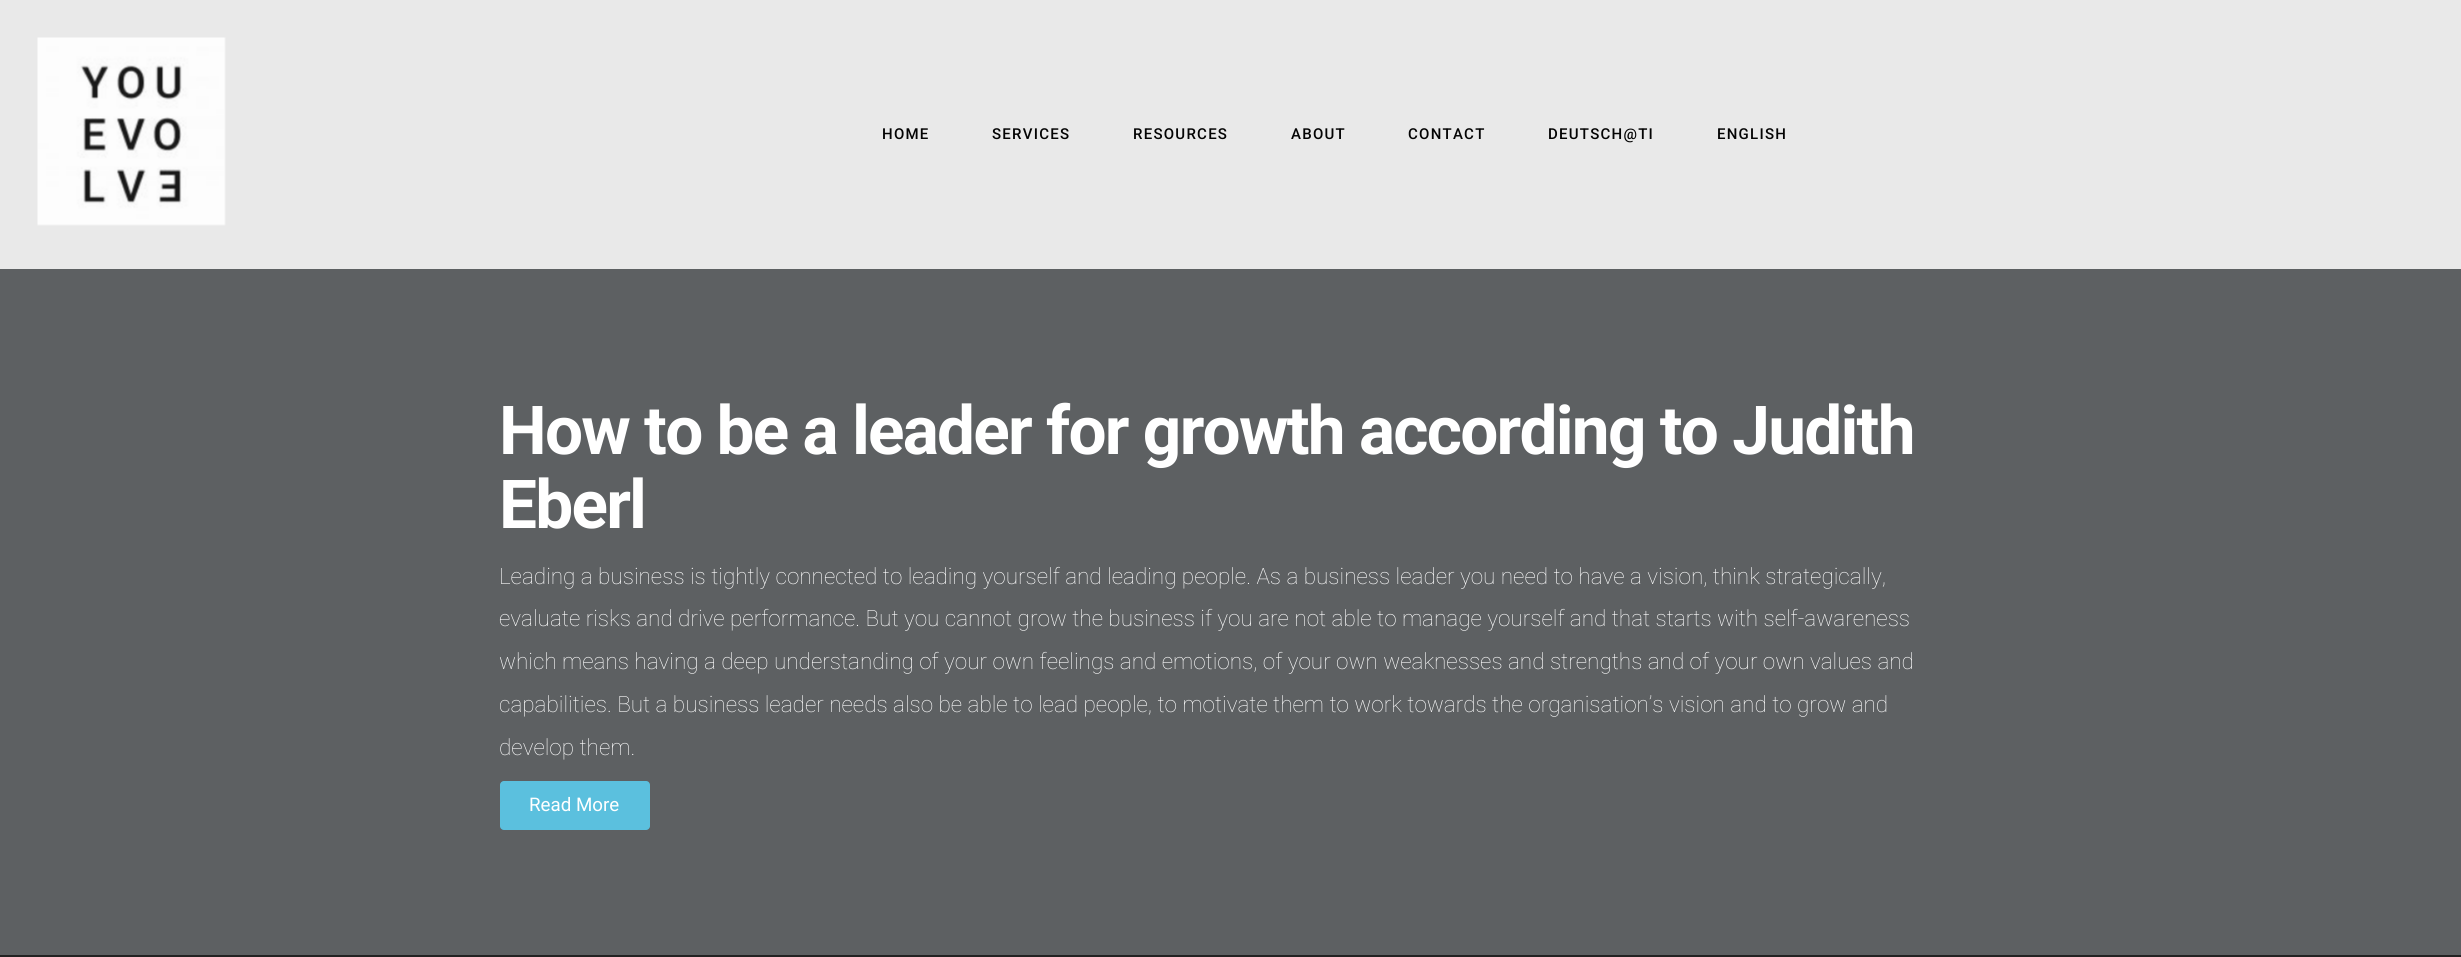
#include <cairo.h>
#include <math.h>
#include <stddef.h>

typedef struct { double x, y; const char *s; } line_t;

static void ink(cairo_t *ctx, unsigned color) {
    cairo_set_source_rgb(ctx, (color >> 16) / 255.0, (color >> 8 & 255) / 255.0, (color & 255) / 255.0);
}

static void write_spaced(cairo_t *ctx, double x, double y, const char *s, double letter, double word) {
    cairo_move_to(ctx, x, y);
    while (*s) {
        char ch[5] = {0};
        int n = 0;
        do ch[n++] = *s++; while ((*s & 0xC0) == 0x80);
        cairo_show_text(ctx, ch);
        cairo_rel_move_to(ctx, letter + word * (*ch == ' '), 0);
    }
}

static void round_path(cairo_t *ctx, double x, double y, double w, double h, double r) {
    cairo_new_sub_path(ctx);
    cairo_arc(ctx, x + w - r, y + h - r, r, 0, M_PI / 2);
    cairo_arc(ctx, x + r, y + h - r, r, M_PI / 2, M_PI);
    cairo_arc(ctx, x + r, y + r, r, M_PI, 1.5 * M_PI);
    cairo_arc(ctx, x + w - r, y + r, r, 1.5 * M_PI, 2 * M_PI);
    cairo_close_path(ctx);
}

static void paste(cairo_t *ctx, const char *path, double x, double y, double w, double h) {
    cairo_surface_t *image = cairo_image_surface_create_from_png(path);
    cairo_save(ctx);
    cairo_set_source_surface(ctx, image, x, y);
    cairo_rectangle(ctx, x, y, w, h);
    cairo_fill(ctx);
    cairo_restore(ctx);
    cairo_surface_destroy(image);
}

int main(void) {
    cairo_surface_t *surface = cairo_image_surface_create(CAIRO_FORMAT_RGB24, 2461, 957);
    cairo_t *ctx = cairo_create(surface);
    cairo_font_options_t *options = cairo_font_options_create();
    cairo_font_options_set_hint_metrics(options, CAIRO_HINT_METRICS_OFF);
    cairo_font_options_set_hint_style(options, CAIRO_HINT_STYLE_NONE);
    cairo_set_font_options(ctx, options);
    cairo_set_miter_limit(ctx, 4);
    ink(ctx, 0x222222);
    cairo_paint(ctx);
    ink(ctx, 0xE9E9E9);
    cairo_rectangle(ctx, 0, 0, 2461, 269);
    cairo_fill(ctx);
    paste(ctx, "media/1.png", 37, 37, 189, 189);
    cairo_select_font_face(ctx, "Roboto Medium", CAIRO_FONT_SLANT_NORMAL, CAIRO_FONT_WEIGHT_NORMAL);
    cairo_set_font_size(ctx, 15);
    ink(ctx, 0x030303);
    {
        static const line_t items[] = {
            {882, 139, "HOME"},
            {992, 139, "SERVICES"},
            {1133, 139, "RESOURCES"},
            {1291, 139, "ABOUT"},
            {1408, 139, "CONTACT"},
            {1548, 139, "DEUTSCH@TI"},
            {1717, 139, "ENGLISH"},
        };
        for (size_t i = 0; i < sizeof items / sizeof *items; i++) {
            write_spaced(ctx, items[i].x, items[i].y, items[i].s, 1.25, 0);
        }
    }
    ink(ctx, 0x5D6062);
    cairo_rectangle(ctx, 0, 269, 2461, 686);
    cairo_fill(ctx);
    cairo_select_font_face(ctx, "Roboto", CAIRO_FONT_SLANT_NORMAL, CAIRO_FONT_WEIGHT_BOLD);
    cairo_set_font_size(ctx, 67.5);
    ink(ctx, 0xFFFFFF);
    write_spaced(ctx, 499, 454, "How to be a leader for growth according to Judith", -1.75, 0);
    write_spaced(ctx, 499, 528, "Eberl", -1.75, 0);
    cairo_select_font_face(ctx, "Roboto Thin", CAIRO_FONT_SLANT_NORMAL, CAIRO_FONT_WEIGHT_NORMAL);
    cairo_set_font_size(ctx, 22.5);
    {
        static const line_t items[] = {
            {499, 584, "Leading a business is tightly connected to leading yourself and leading people. As a business leader you need to have a vision, think strategically,"},
            {499, 626, "evaluate risks and drive performance. But you cannot grow the business if you are not able to manage yourself and that starts with self-awareness"},
            {499, 669, "which means having a deep understanding of your own feelings and emotions, of your own weaknesses and strengths and of your own values and"},
            {499, 712, "capabilities. But a business leader needs also be able to lead people, to motivate them to work towards the organisation’s vision and to grow and"},
            {499, 755, "develop them."},
        };
        for (size_t i = 0; i < sizeof items / sizeof *items; i++) {
            cairo_move_to(ctx, items[i].x, items[i].y);
            cairo_show_text(ctx, items[i].s);
        }
    }
    ink(ctx, 0x5BC0DE);
    round_path(ctx, 500, 781, 150, 49, 4);
    cairo_fill(ctx);
    cairo_select_font_face(ctx, "Roboto", CAIRO_FONT_SLANT_NORMAL, CAIRO_FONT_WEIGHT_NORMAL);
    cairo_set_font_size(ctx, 18.75);
    ink(ctx, 0xFFFFFF);
    cairo_move_to(ctx, 529, 811);
    cairo_show_text(ctx, "Read More");
    cairo_surface_write_to_png(surface, "image.png");
    cairo_font_options_destroy(options);
    cairo_destroy(ctx);
    cairo_surface_destroy(surface);
    return 0;
}
